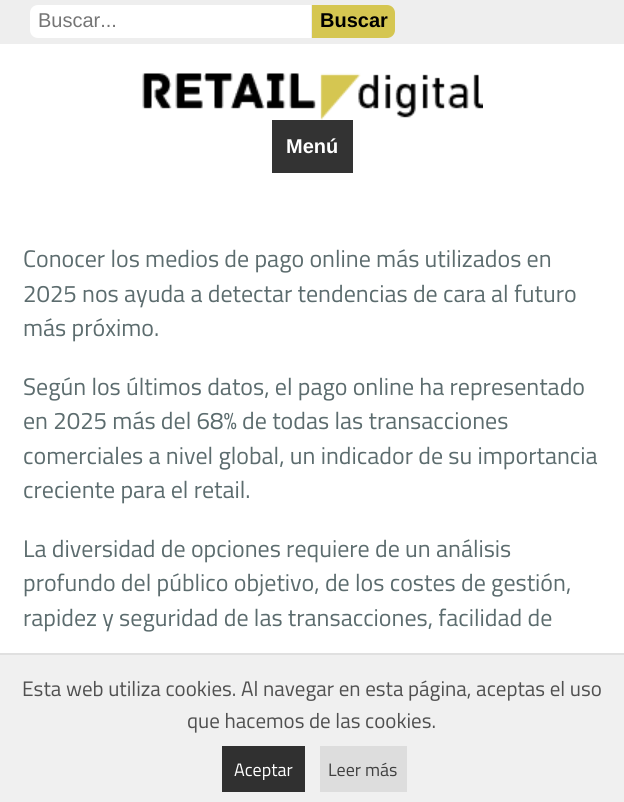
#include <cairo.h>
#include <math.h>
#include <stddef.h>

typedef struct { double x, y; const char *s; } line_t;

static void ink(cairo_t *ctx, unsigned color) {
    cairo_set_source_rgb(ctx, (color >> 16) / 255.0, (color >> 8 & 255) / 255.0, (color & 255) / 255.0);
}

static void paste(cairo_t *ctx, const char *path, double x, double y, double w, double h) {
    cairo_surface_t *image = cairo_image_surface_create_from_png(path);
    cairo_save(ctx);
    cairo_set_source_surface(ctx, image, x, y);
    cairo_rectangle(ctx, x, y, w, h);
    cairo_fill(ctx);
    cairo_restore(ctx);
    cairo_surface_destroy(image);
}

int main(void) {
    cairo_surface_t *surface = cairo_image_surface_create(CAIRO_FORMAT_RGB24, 624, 802);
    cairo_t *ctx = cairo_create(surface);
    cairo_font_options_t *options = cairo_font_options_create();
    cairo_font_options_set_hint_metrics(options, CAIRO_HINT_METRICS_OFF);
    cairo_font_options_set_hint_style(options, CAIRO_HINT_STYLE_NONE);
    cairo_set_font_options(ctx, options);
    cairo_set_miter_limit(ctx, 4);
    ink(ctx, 0xFFFFFF);
    cairo_paint(ctx);
    ink(ctx, 0xEEEEEE);
    cairo_rectangle(ctx, 0, 0, 624, 44);
    cairo_fill(ctx);
    ink(ctx, 0xFFFFFF);
    cairo_new_path(ctx);
    cairo_move_to(ctx, 38, 5);
    cairo_line_to(ctx, 311, 5);
    cairo_line_to(ctx, 311, 38);
    cairo_line_to(ctx, 38, 38);
    cairo_curve_to(ctx, 33.5, 38, 30, 34.5, 30, 30);
    cairo_line_to(ctx, 30, 13);
    cairo_curve_to(ctx, 30, 8.5, 33.5, 5, 38, 5);
    cairo_close_path(ctx);
    cairo_fill(ctx);
    cairo_select_font_face(ctx, "Liberation Sans", CAIRO_FONT_SLANT_NORMAL, CAIRO_FONT_WEIGHT_NORMAL);
    cairo_set_font_size(ctx, 20);
    ink(ctx, 0x757575);
    cairo_move_to(ctx, 38, 27);
    cairo_show_text(ctx, "Buscar...");
    ink(ctx, 0xD5C651);
    cairo_new_path(ctx);
    cairo_move_to(ctx, 312, 5);
    cairo_line_to(ctx, 387, 5);
    cairo_curve_to(ctx, 391.5, 5, 395, 8.5, 395, 13);
    cairo_line_to(ctx, 395, 30);
    cairo_curve_to(ctx, 395, 34.5, 391.5, 38, 387, 38);
    cairo_line_to(ctx, 312, 38);
    cairo_close_path(ctx);
    cairo_fill(ctx);
    cairo_select_font_face(ctx, "Liberation Sans", CAIRO_FONT_SLANT_NORMAL, CAIRO_FONT_WEIGHT_BOLD);
    ink(ctx, 0x000000);
    cairo_move_to(ctx, 320, 27);
    cairo_show_text(ctx, "Buscar");
    paste(ctx, "media/1.png", 142, 73, 341, 47);
    ink(ctx, 0x333333);
    cairo_rectangle(ctx, 272, 120, 81, 53);
    cairo_fill(ctx);
    ink(ctx, 0xFFFFFF);
    cairo_move_to(ctx, 286, 153);
    cairo_show_text(ctx, "Menú");
    cairo_select_font_face(ctx, "Titillium Web", CAIRO_FONT_SLANT_NORMAL, CAIRO_FONT_WEIGHT_NORMAL);
    cairo_set_font_size(ctx, 24);
    ink(ctx, 0x5C6C6E);
    {
        static const line_t items[] = {
            {23, 267, "Conocer los medios de pago online más utilizados en"},
            {23, 302, "2025 nos ayuda a detectar tendencias de cara al futuro"},
            {23, 336, "más próximo."},
            {23, 395, "Según los últimos datos, el pago online ha representado"},
            {23, 429, "en 2025 más del 68% de todas las transacciones"},
            {23, 464, "comerciales a nivel global, un indicador de su importancia"},
            {23, 498, "creciente para el retail."},
            {23, 557, "La diversidad de opciones requiere de un análisis"},
            {23, 591, "profundo del público objetivo, de los costes de gestión,"},
            {23, 626, "rapidez y seguridad de las transacciones, facilidad de"},
        };
        for (size_t i = 0; i < sizeof items / sizeof *items; i++) {
            cairo_move_to(ctx, items[i].x, items[i].y);
            cairo_show_text(ctx, items[i].s);
        }
    }
    ink(ctx, 0xF0F0F0);
    cairo_rectangle(ctx, 0, 655, 624, 147);
    cairo_fill(ctx);
    ink(ctx, 0xE0E0E0);
    cairo_rectangle(ctx, 0, 653, 624, 2);
    cairo_fill(ctx);
    cairo_set_font_size(ctx, 21);
    ink(ctx, 0x505050);
    cairo_move_to(ctx, 22, 696);
    cairo_show_text(ctx, "Esta web utiliza cookies. Al navegar en esta página, aceptas el uso");
    cairo_move_to(ctx, 187, 728);
    cairo_show_text(ctx, "que hacemos de las cookies.");
    ink(ctx, 0x303030);
    cairo_rectangle(ctx, 222, 746, 83, 46);
    cairo_fill(ctx);
    cairo_set_font_size(ctx, 18);
    ink(ctx, 0xFFFFFF);
    cairo_move_to(ctx, 234, 776);
    cairo_show_text(ctx, "Aceptar");
    ink(ctx, 0xDDDDDD);
    cairo_rectangle(ctx, 320, 746, 87, 46);
    cairo_fill(ctx);
    ink(ctx, 0x404040);
    cairo_move_to(ctx, 328, 776);
    cairo_show_text(ctx, "Leer más");
    cairo_surface_write_to_png(surface, "image.png");
    cairo_font_options_destroy(options);
    cairo_destroy(ctx);
    cairo_surface_destroy(surface);
    return 0;
}
